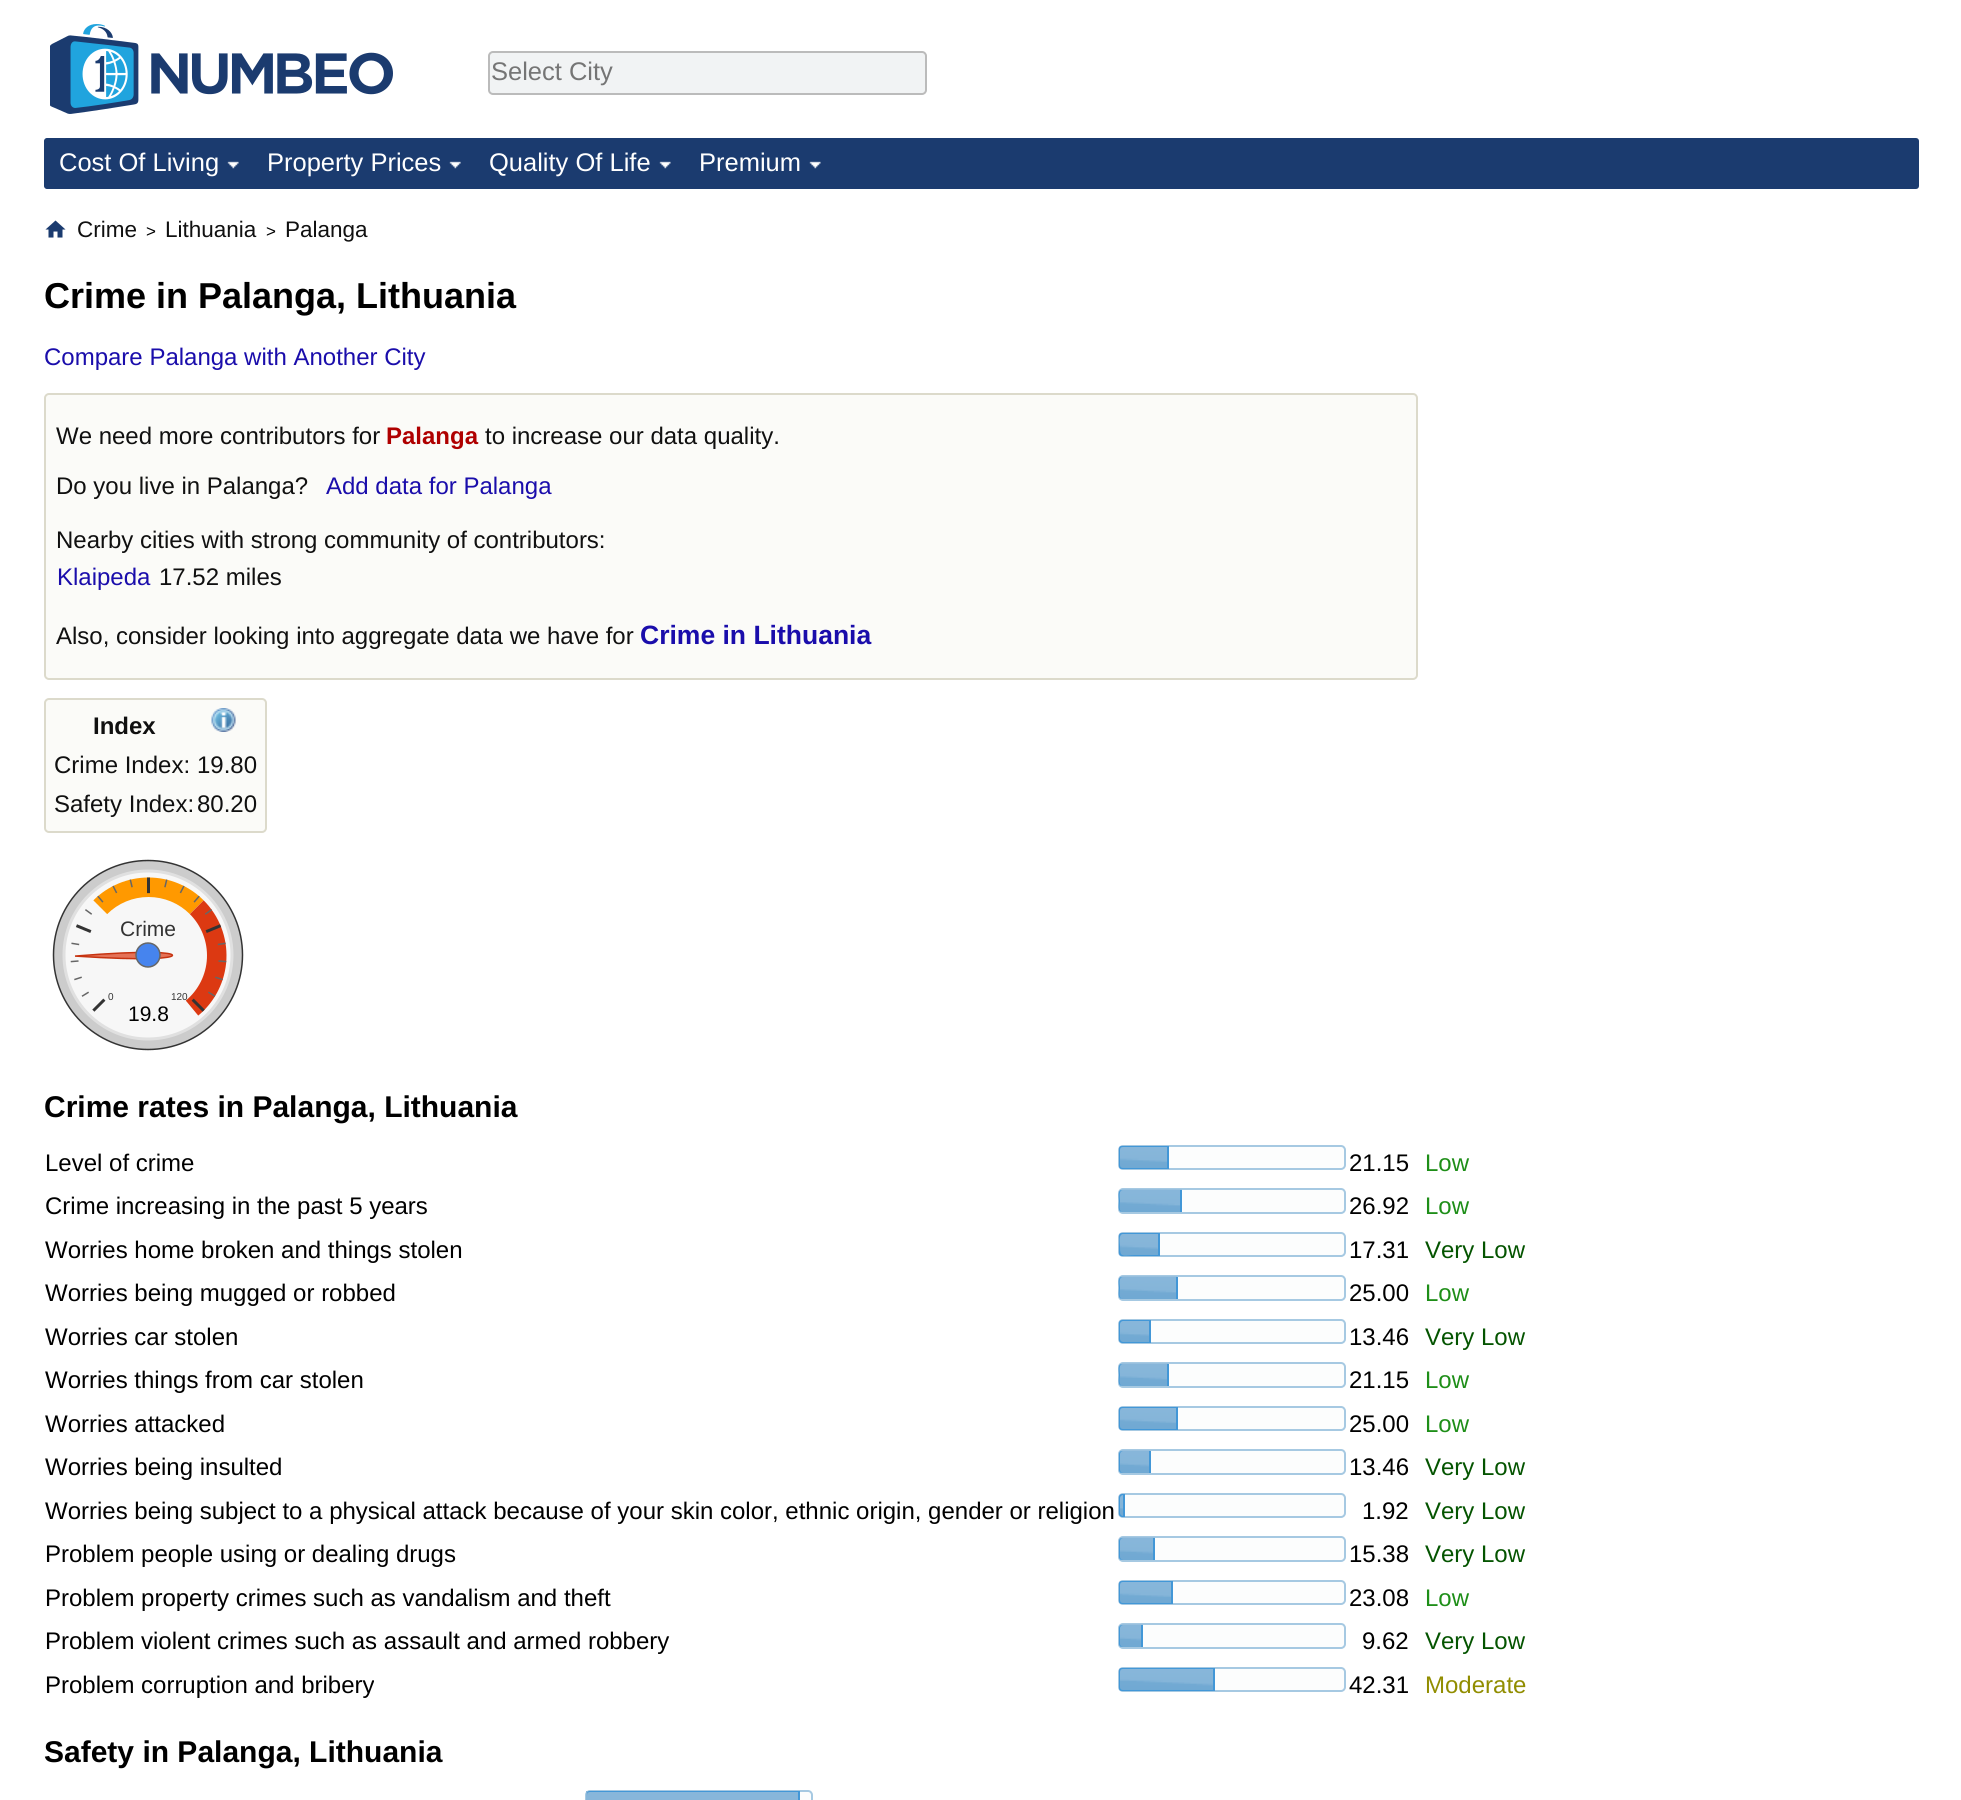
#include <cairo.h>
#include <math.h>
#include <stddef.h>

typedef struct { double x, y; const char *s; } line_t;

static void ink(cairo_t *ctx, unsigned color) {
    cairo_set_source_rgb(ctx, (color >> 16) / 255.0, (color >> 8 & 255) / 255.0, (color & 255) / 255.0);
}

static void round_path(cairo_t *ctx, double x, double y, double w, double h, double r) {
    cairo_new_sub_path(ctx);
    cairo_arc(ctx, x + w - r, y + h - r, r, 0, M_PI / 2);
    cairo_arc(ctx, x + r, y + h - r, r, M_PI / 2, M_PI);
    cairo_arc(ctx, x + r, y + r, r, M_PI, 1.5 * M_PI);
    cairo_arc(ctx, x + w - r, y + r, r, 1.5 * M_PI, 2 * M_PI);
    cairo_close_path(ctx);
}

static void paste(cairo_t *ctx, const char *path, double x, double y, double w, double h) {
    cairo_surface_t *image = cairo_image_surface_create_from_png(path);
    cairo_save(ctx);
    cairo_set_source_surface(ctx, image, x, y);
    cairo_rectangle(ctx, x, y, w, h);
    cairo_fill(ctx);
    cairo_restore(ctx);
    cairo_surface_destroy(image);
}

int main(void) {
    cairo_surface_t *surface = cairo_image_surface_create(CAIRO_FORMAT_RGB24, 1961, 1800);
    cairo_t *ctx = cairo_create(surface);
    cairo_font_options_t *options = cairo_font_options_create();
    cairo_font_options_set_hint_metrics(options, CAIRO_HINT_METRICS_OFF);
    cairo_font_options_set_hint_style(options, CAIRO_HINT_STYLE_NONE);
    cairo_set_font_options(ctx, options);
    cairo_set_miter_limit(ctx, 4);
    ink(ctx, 0xFFFFFF);
    cairo_paint(ctx);
    paste(ctx, "media/1.png", 50, 24, 343, 90);
    ink(ctx, 0xF1F3F4);
    round_path(ctx, 489, 52, 437, 42, 4);
    cairo_fill_preserve(ctx);
    ink(ctx, 0xBBBBBB);
    cairo_stroke(ctx);
    cairo_select_font_face(ctx, "Liberation Sans", CAIRO_FONT_SLANT_NORMAL, CAIRO_FONT_WEIGHT_NORMAL);
    cairo_set_font_size(ctx, 25.5);
    ink(ctx, 0x757575);
    cairo_move_to(ctx, 491, 80);
    cairo_show_text(ctx, "Select City");
    ink(ctx, 0x1B3B6F);
    round_path(ctx, 44, 138, 1875, 51, 3);
    cairo_fill(ctx);
    round_path(ctx, 44, 138, 208, 51, 5);
    cairo_fill(ctx);
    paste(ctx, "media/2.png", 227, 161, 12, 8);
    ink(ctx, 0xFFFFFF);
    cairo_move_to(ctx, 59, 171);
    cairo_show_text(ctx, "Cost Of Living");
    paste(ctx, "media/3.png", 449, 161, 12, 8);
    cairo_move_to(ctx, 267, 171);
    cairo_show_text(ctx, "Property Prices");
    paste(ctx, "media/2.png", 659, 161, 12, 8);
    cairo_move_to(ctx, 489, 171);
    cairo_show_text(ctx, "Quality Of Life");
    paste(ctx, "media/2.png", 809, 161, 12, 8);
    cairo_move_to(ctx, 699, 171);
    cairo_show_text(ctx, "Premium");
    paste(ctx, "media/4.png", 45, 220, 21, 18);
    cairo_set_font_size(ctx, 22.5);
    ink(ctx, 0x101010);
    cairo_move_to(ctx, 77, 237);
    cairo_show_text(ctx, "Crime");
    cairo_set_font_size(ctx, 17);
    ink(ctx, 0x000000);
    cairo_move_to(ctx, 146, 237);
    cairo_show_text(ctx, ">");
    cairo_set_font_size(ctx, 22.5);
    ink(ctx, 0x101010);
    cairo_move_to(ctx, 165, 237);
    cairo_show_text(ctx, "Lithuania");
    cairo_set_font_size(ctx, 17);
    ink(ctx, 0x000000);
    cairo_move_to(ctx, 266, 237);
    cairo_show_text(ctx, ">");
    cairo_set_font_size(ctx, 22.5);
    ink(ctx, 0x101010);
    cairo_move_to(ctx, 285, 237);
    cairo_show_text(ctx, "Palanga");
    cairo_select_font_face(ctx, "Liberation Sans", CAIRO_FONT_SLANT_NORMAL, CAIRO_FONT_WEIGHT_BOLD);
    cairo_set_font_size(ctx, 36);
    ink(ctx, 0x000000);
    cairo_move_to(ctx, 44, 308);
    cairo_show_text(ctx, "Crime in Palanga, Lithuania");
    cairo_select_font_face(ctx, "Liberation Sans", CAIRO_FONT_SLANT_NORMAL, CAIRO_FONT_WEIGHT_NORMAL);
    cairo_set_font_size(ctx, 24);
    ink(ctx, 0x1A0DAB);
    cairo_move_to(ctx, 44, 365);
    cairo_show_text(ctx, "Compare Palanga with Another City");
    ink(ctx, 0xFBFBF8);
    round_path(ctx, 45, 394, 1372, 285, 4);
    cairo_fill_preserve(ctx);
    ink(ctx, 0xDCDACB);
    cairo_stroke(ctx);
    ink(ctx, 0x101010);
    cairo_move_to(ctx, 56, 444);
    cairo_show_text(ctx, "We need more contributors for");
    cairo_select_font_face(ctx, "Liberation Sans", CAIRO_FONT_SLANT_NORMAL, CAIRO_FONT_WEIGHT_BOLD);
    ink(ctx, 0xAF0000);
    cairo_move_to(ctx, 386, 444);
    cairo_show_text(ctx, "Palanga");
    cairo_select_font_face(ctx, "Liberation Sans", CAIRO_FONT_SLANT_NORMAL, CAIRO_FONT_WEIGHT_NORMAL);
    ink(ctx, 0x101010);
    cairo_move_to(ctx, 485, 444);
    cairo_show_text(ctx, "to increase our data quality.");
    cairo_move_to(ctx, 56, 494);
    cairo_show_text(ctx, "Do you live in Palanga?");
    ink(ctx, 0x1A0DAB);
    cairo_move_to(ctx, 326, 494);
    cairo_show_text(ctx, "Add data for Palanga");
    ink(ctx, 0x101010);
    cairo_move_to(ctx, 56, 548);
    cairo_show_text(ctx, "Nearby cities with strong community of contributors:");
    ink(ctx, 0x1A0DAB);
    cairo_move_to(ctx, 57, 585);
    cairo_show_text(ctx, "Klaipeda");
    ink(ctx, 0x101010);
    cairo_move_to(ctx, 159, 585);
    cairo_show_text(ctx, "17.52 miles");
    cairo_move_to(ctx, 56, 644);
    cairo_show_text(ctx, "Also, consider looking into aggregate data we have for");
    cairo_select_font_face(ctx, "Liberation Sans", CAIRO_FONT_SLANT_NORMAL, CAIRO_FONT_WEIGHT_BOLD);
    cairo_set_font_size(ctx, 26.5);
    ink(ctx, 0x1A0DAB);
    cairo_move_to(ctx, 640, 644);
    cairo_show_text(ctx, "Crime in Lithuania");
    ink(ctx, 0xFBFBF8);
    round_path(ctx, 45, 699, 221, 133, 4);
    cairo_fill_preserve(ctx);
    ink(ctx, 0xDCDACB);
    cairo_stroke(ctx);
    cairo_set_font_size(ctx, 24);
    ink(ctx, 0x101010);
    cairo_move_to(ctx, 93, 734);
    cairo_show_text(ctx, "Index");
    paste(ctx, "media/5.png", 211, 708, 25, 24);
    cairo_select_font_face(ctx, "Liberation Sans", CAIRO_FONT_SLANT_NORMAL, CAIRO_FONT_WEIGHT_NORMAL);
    {
        static const line_t items[] = {
            {54, 773, "Crime Index:"},
            {197, 773, "19.80"},
            {54, 812, "Safety Index:"},
            {197, 812, "80.20"},
        };
        for (size_t i = 0; i < sizeof items / sizeof *items; i++) {
            cairo_move_to(ctx, items[i].x, items[i].y);
            cairo_show_text(ctx, items[i].s);
        }
    }
    paste(ctx, "media/6.png", 52, 859, 192, 192);
    cairo_set_font_size(ctx, 21);
    ink(ctx, 0x333333);
    cairo_move_to(ctx, 120, 936);
    cairo_show_text(ctx, "Crime");
    cairo_set_font_size(ctx, 10);
    cairo_move_to(ctx, 108, 1000);
    cairo_show_text(ctx, "0");
    cairo_move_to(ctx, 171, 1000);
    cairo_show_text(ctx, "120");
    cairo_set_font_size(ctx, 21);
    ink(ctx, 0x000000);
    cairo_move_to(ctx, 128, 1021);
    cairo_show_text(ctx, "19.8");
    cairo_select_font_face(ctx, "Liberation Sans", CAIRO_FONT_SLANT_NORMAL, CAIRO_FONT_WEIGHT_BOLD);
    cairo_set_font_size(ctx, 30);
    cairo_move_to(ctx, 44, 1117);
    cairo_show_text(ctx, "Crime rates in Palanga, Lithuania");
    cairo_select_font_face(ctx, "Liberation Sans", CAIRO_FONT_SLANT_NORMAL, CAIRO_FONT_WEIGHT_NORMAL);
    cairo_set_font_size(ctx, 24);
    cairo_move_to(ctx, 45, 1171);
    cairo_show_text(ctx, "Level of crime");
    ink(ctx, 0xFCFDFD);
    round_path(ctx, 1119, 1146, 226, 23, 4);
    cairo_fill_preserve(ctx);
    ink(ctx, 0xA6C9E2);
    cairo_stroke(ctx);
    paste(ctx, "media/7.png", 1119, 1146, 48, 23);
    ink(ctx, 0x4297D7);
    cairo_set_fill_rule(ctx, CAIRO_FILL_RULE_EVEN_ODD);
    cairo_new_path(ctx);
    cairo_move_to(ctx, 1122, 1146);
    cairo_line_to(ctx, 1169, 1146);
    cairo_line_to(ctx, 1169, 1169);
    cairo_line_to(ctx, 1122, 1169);
    cairo_curve_to(ctx, 1120, 1169, 1119, 1168, 1119, 1166);
    cairo_line_to(ctx, 1119, 1149);
    cairo_curve_to(ctx, 1119, 1147, 1120, 1146, 1122, 1146);
    cairo_close_path(ctx);
    cairo_move_to(ctx, 1123, 1147);
    cairo_curve_to(ctx, 1121, 1147, 1120, 1148, 1120, 1150);
    cairo_line_to(ctx, 1120, 1165);
    cairo_curve_to(ctx, 1120, 1167, 1121, 1168, 1123, 1168);
    cairo_line_to(ctx, 1167, 1168);
    cairo_line_to(ctx, 1167, 1147);
    cairo_close_path(ctx);
    cairo_fill(ctx);
    ink(ctx, 0x000000);
    cairo_move_to(ctx, 1349, 1171);
    cairo_show_text(ctx, "21.15");
    ink(ctx, 0x1E8E18);
    cairo_move_to(ctx, 1425, 1171);
    cairo_show_text(ctx, "Low");
    ink(ctx, 0x000000);
    cairo_move_to(ctx, 45, 1214);
    cairo_show_text(ctx, "Crime increasing in the past 5 years");
    ink(ctx, 0xFCFDFD);
    round_path(ctx, 1119, 1189, 226, 24, 4);
    cairo_fill_preserve(ctx);
    ink(ctx, 0xA6C9E2);
    cairo_stroke(ctx);
    paste(ctx, "media/8.png", 1119, 1189, 63, 23);
    ink(ctx, 0x4297D7);
    cairo_new_path(ctx);
    cairo_move_to(ctx, 1182, 1190);
    cairo_line_to(ctx, 1182, 1212);
    cairo_line_to(ctx, 1180, 1212);
    cairo_line_to(ctx, 1180, 1190);
    cairo_close_path(ctx);
    cairo_move_to(ctx, 1122, 1190);
    cairo_curve_to(ctx, 1117, 1190, 1119, 1198, 1119, 1201);
    cairo_curve_to(ctx, 1119, 1205, 1117, 1212, 1123, 1212);
    cairo_curve_to(ctx, 1118, 1212, 1120, 1204, 1120, 1201);
    cairo_curve_to(ctx, 1120, 1198, 1118, 1190, 1123, 1190);
    cairo_close_path(ctx);
    cairo_fill(ctx);
    ink(ctx, 0x000000);
    cairo_move_to(ctx, 1349, 1214);
    cairo_show_text(ctx, "26.92");
    ink(ctx, 0x1E8E18);
    cairo_move_to(ctx, 1425, 1214);
    cairo_show_text(ctx, "Low");
    ink(ctx, 0x000000);
    cairo_move_to(ctx, 45, 1258);
    cairo_show_text(ctx, "Worries home broken and things stolen");
    ink(ctx, 0xFCFDFD);
    round_path(ctx, 1119, 1233, 226, 23, 4);
    cairo_fill_preserve(ctx);
    ink(ctx, 0xA6C9E2);
    cairo_stroke(ctx);
    paste(ctx, "media/9.png", 1119, 1233, 39, 23);
    ink(ctx, 0x4297D7);
    cairo_new_path(ctx);
    cairo_move_to(ctx, 1122, 1233);
    cairo_line_to(ctx, 1160, 1233);
    cairo_line_to(ctx, 1160, 1256);
    cairo_line_to(ctx, 1122, 1256);
    cairo_curve_to(ctx, 1120, 1256, 1119, 1255, 1119, 1253);
    cairo_line_to(ctx, 1119, 1236);
    cairo_curve_to(ctx, 1119, 1234, 1120, 1233, 1122, 1233);
    cairo_close_path(ctx);
    cairo_move_to(ctx, 1123, 1234);
    cairo_curve_to(ctx, 1118, 1234, 1120, 1244, 1120, 1247);
    cairo_curve_to(ctx, 1120, 1258, 1122, 1255, 1135, 1255);
    cairo_line_to(ctx, 1158, 1255);
    cairo_line_to(ctx, 1158, 1234);
    cairo_close_path(ctx);
    cairo_fill(ctx);
    ink(ctx, 0x000000);
    cairo_move_to(ctx, 1349, 1258);
    cairo_show_text(ctx, "17.31");
    ink(ctx, 0x045400);
    cairo_move_to(ctx, 1425, 1258);
    cairo_show_text(ctx, "Very Low");
    ink(ctx, 0x000000);
    cairo_move_to(ctx, 45, 1301);
    cairo_show_text(ctx, "Worries being mugged or robbed");
    ink(ctx, 0xFCFDFD);
    round_path(ctx, 1119, 1276, 226, 24, 4);
    cairo_fill_preserve(ctx);
    ink(ctx, 0xA6C9E2);
    cairo_stroke(ctx);
    paste(ctx, "media/10.png", 1119, 1276, 59, 23);
    ink(ctx, 0x4297D7);
    cairo_new_path(ctx);
    cairo_move_to(ctx, 1178, 1277);
    cairo_line_to(ctx, 1178, 1299);
    cairo_line_to(ctx, 1176, 1299);
    cairo_line_to(ctx, 1176, 1277);
    cairo_close_path(ctx);
    cairo_move_to(ctx, 1122, 1277);
    cairo_curve_to(ctx, 1117, 1277, 1119, 1285, 1119, 1288);
    cairo_curve_to(ctx, 1119, 1292, 1117, 1299, 1123, 1299);
    cairo_curve_to(ctx, 1118, 1299, 1120, 1291, 1120, 1288);
    cairo_curve_to(ctx, 1120, 1285, 1118, 1277, 1123, 1277);
    cairo_close_path(ctx);
    cairo_fill(ctx);
    ink(ctx, 0x000000);
    cairo_move_to(ctx, 1349, 1301);
    cairo_show_text(ctx, "25.00");
    ink(ctx, 0x1E8E18);
    cairo_move_to(ctx, 1425, 1301);
    cairo_show_text(ctx, "Low");
    ink(ctx, 0x000000);
    cairo_move_to(ctx, 45, 1345);
    cairo_show_text(ctx, "Worries car stolen");
    ink(ctx, 0xFCFDFD);
    round_path(ctx, 1119, 1320, 226, 23, 4);
    cairo_fill_preserve(ctx);
    ink(ctx, 0xA6C9E2);
    cairo_stroke(ctx);
    paste(ctx, "media/11.png", 1119, 1320, 30, 23);
    ink(ctx, 0x4297D7);
    cairo_new_path(ctx);
    cairo_move_to(ctx, 1122, 1320);
    cairo_line_to(ctx, 1151, 1320);
    cairo_line_to(ctx, 1151, 1343);
    cairo_line_to(ctx, 1122, 1343);
    cairo_curve_to(ctx, 1120.5, 1343, 1119, 1341.5, 1119, 1340);
    cairo_line_to(ctx, 1119, 1323);
    cairo_curve_to(ctx, 1119, 1321.5, 1120.5, 1320, 1122, 1320);
    cairo_close_path(ctx);
    cairo_move_to(ctx, 1123, 1321);
    cairo_curve_to(ctx, 1121.5, 1321, 1120, 1322.5, 1120, 1324);
    cairo_line_to(ctx, 1120, 1339);
    cairo_curve_to(ctx, 1120, 1340.5, 1121.5, 1342, 1123, 1342);
    cairo_line_to(ctx, 1149, 1342);
    cairo_line_to(ctx, 1149, 1321);
    cairo_close_path(ctx);
    cairo_fill(ctx);
    ink(ctx, 0x000000);
    cairo_move_to(ctx, 1349, 1345);
    cairo_show_text(ctx, "13.46");
    ink(ctx, 0x045400);
    cairo_move_to(ctx, 1425, 1345);
    cairo_show_text(ctx, "Very Low");
    ink(ctx, 0x000000);
    cairo_move_to(ctx, 45, 1388);
    cairo_show_text(ctx, "Worries things from car stolen");
    ink(ctx, 0xFCFDFD);
    round_path(ctx, 1119, 1363, 226, 24, 4);
    cairo_fill_preserve(ctx);
    ink(ctx, 0xA6C9E2);
    cairo_stroke(ctx);
    paste(ctx, "media/12.png", 1119, 1363, 50, 23);
    ink(ctx, 0x4297D7);
    cairo_new_path(ctx);
    cairo_move_to(ctx, 1169, 1364);
    cairo_line_to(ctx, 1169, 1386);
    cairo_line_to(ctx, 1167, 1386);
    cairo_line_to(ctx, 1167, 1364);
    cairo_close_path(ctx);
    cairo_move_to(ctx, 1122, 1364);
    cairo_curve_to(ctx, 1117, 1364, 1119, 1372, 1119, 1375);
    cairo_curve_to(ctx, 1119, 1379, 1117, 1386, 1123, 1386);
    cairo_curve_to(ctx, 1118, 1386, 1120, 1378, 1120, 1375);
    cairo_curve_to(ctx, 1120, 1372, 1118, 1364, 1123, 1364);
    cairo_close_path(ctx);
    cairo_fill(ctx);
    ink(ctx, 0x000000);
    cairo_move_to(ctx, 1349, 1388);
    cairo_show_text(ctx, "21.15");
    ink(ctx, 0x1E8E18);
    cairo_move_to(ctx, 1425, 1388);
    cairo_show_text(ctx, "Low");
    ink(ctx, 0x000000);
    cairo_move_to(ctx, 45, 1432);
    cairo_show_text(ctx, "Worries attacked");
    ink(ctx, 0xFCFDFD);
    round_path(ctx, 1119, 1407, 226, 23, 4);
    cairo_fill_preserve(ctx);
    ink(ctx, 0xA6C9E2);
    cairo_stroke(ctx);
    paste(ctx, "media/13.png", 1119, 1407, 57, 23);
    ink(ctx, 0x4297D7);
    cairo_new_path(ctx);
    cairo_move_to(ctx, 1122, 1407);
    cairo_line_to(ctx, 1178, 1407);
    cairo_line_to(ctx, 1178, 1430);
    cairo_line_to(ctx, 1122, 1430);
    cairo_curve_to(ctx, 1120, 1430, 1119, 1429, 1119, 1427);
    cairo_line_to(ctx, 1119, 1410);
    cairo_curve_to(ctx, 1119, 1408, 1120, 1407, 1122, 1407);
    cairo_close_path(ctx);
    cairo_move_to(ctx, 1123, 1408);
    cairo_curve_to(ctx, 1121, 1408, 1120, 1409, 1120, 1411);
    cairo_line_to(ctx, 1120, 1426);
    cairo_curve_to(ctx, 1120, 1428, 1121, 1429, 1123, 1429);
    cairo_line_to(ctx, 1176, 1429);
    cairo_line_to(ctx, 1176, 1408);
    cairo_close_path(ctx);
    cairo_fill(ctx);
    ink(ctx, 0x000000);
    cairo_move_to(ctx, 1349, 1432);
    cairo_show_text(ctx, "25.00");
    ink(ctx, 0x1E8E18);
    cairo_move_to(ctx, 1425, 1432);
    cairo_show_text(ctx, "Low");
    ink(ctx, 0x000000);
    cairo_move_to(ctx, 45, 1475);
    cairo_show_text(ctx, "Worries being insulted");
    ink(ctx, 0xFCFDFD);
    round_path(ctx, 1119, 1450, 226, 24, 4);
    cairo_fill_preserve(ctx);
    ink(ctx, 0xA6C9E2);
    cairo_stroke(ctx);
    paste(ctx, "media/14.png", 1119, 1450, 32, 23);
    ink(ctx, 0x4297D7);
    cairo_new_path(ctx);
    cairo_move_to(ctx, 1151, 1451);
    cairo_line_to(ctx, 1151, 1473);
    cairo_line_to(ctx, 1149, 1473);
    cairo_line_to(ctx, 1149, 1451);
    cairo_close_path(ctx);
    cairo_move_to(ctx, 1122, 1451);
    cairo_curve_to(ctx, 1120.5, 1451, 1119, 1452.5, 1119, 1454);
    cairo_line_to(ctx, 1119, 1470);
    cairo_curve_to(ctx, 1119, 1471.5, 1120.5, 1473, 1122, 1473);
    cairo_line_to(ctx, 1123, 1473);
    cairo_curve_to(ctx, 1121.5, 1473, 1120, 1471.5, 1120, 1470);
    cairo_line_to(ctx, 1120, 1454);
    cairo_curve_to(ctx, 1120, 1452.5, 1121.5, 1451, 1123, 1451);
    cairo_close_path(ctx);
    cairo_fill(ctx);
    ink(ctx, 0x000000);
    cairo_move_to(ctx, 1349, 1475);
    cairo_show_text(ctx, "13.46");
    ink(ctx, 0x045400);
    cairo_move_to(ctx, 1425, 1475);
    cairo_show_text(ctx, "Very Low");
    ink(ctx, 0x000000);
    cairo_move_to(ctx, 45, 1519);
    cairo_show_text(ctx, "Worries being subject to a physical attack because of your skin color, ethnic origin, gender or religion");
    ink(ctx, 0xFCFDFD);
    round_path(ctx, 1119, 1494, 226, 23, 4);
    cairo_fill_preserve(ctx);
    ink(ctx, 0xA6C9E2);
    cairo_stroke(ctx);
    paste(ctx, "media/15.png", 1119, 1494, 4, 23);
    ink(ctx, 0x4297D7);
    cairo_new_path(ctx);
    cairo_move_to(ctx, 1122, 1494);
    cairo_line_to(ctx, 1125, 1494);
    cairo_line_to(ctx, 1125, 1517);
    cairo_line_to(ctx, 1122, 1517);
    cairo_curve_to(ctx, 1120.5, 1517, 1119, 1515.5, 1119, 1514);
    cairo_line_to(ctx, 1119, 1497);
    cairo_curve_to(ctx, 1119, 1495.5, 1120.5, 1494, 1122, 1494);
    cairo_close_path(ctx);
    cairo_move_to(ctx, 1123, 1495);
    cairo_curve_to(ctx, 1121.5, 1495, 1120, 1496.5, 1120, 1498);
    cairo_line_to(ctx, 1120, 1513);
    cairo_curve_to(ctx, 1120, 1514.5, 1121.5, 1516, 1123, 1516);
    cairo_close_path(ctx);
    cairo_fill(ctx);
    ink(ctx, 0x000000);
    cairo_move_to(ctx, 1362, 1519);
    cairo_show_text(ctx, "1.92");
    ink(ctx, 0x045400);
    cairo_move_to(ctx, 1425, 1519);
    cairo_show_text(ctx, "Very Low");
    ink(ctx, 0x000000);
    cairo_move_to(ctx, 45, 1562);
    cairo_show_text(ctx, "Problem people using or dealing drugs");
    ink(ctx, 0xFCFDFD);
    round_path(ctx, 1119, 1537, 226, 24, 4);
    cairo_fill_preserve(ctx);
    ink(ctx, 0xA6C9E2);
    cairo_stroke(ctx);
    paste(ctx, "media/16.png", 1119, 1537, 36, 23);
    ink(ctx, 0x4297D7);
    cairo_new_path(ctx);
    cairo_move_to(ctx, 1155, 1538);
    cairo_line_to(ctx, 1155, 1560);
    cairo_line_to(ctx, 1153, 1560);
    cairo_line_to(ctx, 1153, 1538);
    cairo_close_path(ctx);
    cairo_move_to(ctx, 1122, 1538);
    cairo_curve_to(ctx, 1120.5, 1538, 1119, 1539.5, 1119, 1541);
    cairo_line_to(ctx, 1119, 1557);
    cairo_curve_to(ctx, 1119, 1558.5, 1120.5, 1560, 1122, 1560);
    cairo_line_to(ctx, 1123, 1560);
    cairo_curve_to(ctx, 1121.5, 1560, 1120, 1558.5, 1120, 1557);
    cairo_line_to(ctx, 1120, 1541);
    cairo_curve_to(ctx, 1120, 1539.5, 1121.5, 1538, 1123, 1538);
    cairo_close_path(ctx);
    cairo_fill(ctx);
    ink(ctx, 0x000000);
    cairo_move_to(ctx, 1349, 1562);
    cairo_show_text(ctx, "15.38");
    ink(ctx, 0x045400);
    cairo_move_to(ctx, 1425, 1562);
    cairo_show_text(ctx, "Very Low");
    ink(ctx, 0x000000);
    cairo_move_to(ctx, 45, 1606);
    cairo_show_text(ctx, "Problem property crimes such as vandalism and theft");
    ink(ctx, 0xFCFDFD);
    round_path(ctx, 1119, 1581, 226, 23, 4);
    cairo_fill_preserve(ctx);
    ink(ctx, 0xA6C9E2);
    cairo_stroke(ctx);
    paste(ctx, "media/17.png", 1119, 1581, 52, 23);
    ink(ctx, 0x4297D7);
    cairo_new_path(ctx);
    cairo_move_to(ctx, 1122, 1581);
    cairo_line_to(ctx, 1173, 1581);
    cairo_line_to(ctx, 1173, 1604);
    cairo_line_to(ctx, 1122, 1604);
    cairo_curve_to(ctx, 1120, 1604, 1119, 1603, 1119, 1601);
    cairo_line_to(ctx, 1119, 1584);
    cairo_curve_to(ctx, 1119, 1582, 1120, 1581, 1122, 1581);
    cairo_close_path(ctx);
    cairo_move_to(ctx, 1123, 1582);
    cairo_curve_to(ctx, 1121, 1582, 1120, 1583, 1120, 1585);
    cairo_line_to(ctx, 1120, 1600);
    cairo_curve_to(ctx, 1120, 1602, 1121, 1603, 1123, 1603);
    cairo_line_to(ctx, 1171, 1603);
    cairo_line_to(ctx, 1171, 1582);
    cairo_close_path(ctx);
    cairo_fill(ctx);
    ink(ctx, 0x000000);
    cairo_move_to(ctx, 1349, 1606);
    cairo_show_text(ctx, "23.08");
    ink(ctx, 0x1E8E18);
    cairo_move_to(ctx, 1425, 1606);
    cairo_show_text(ctx, "Low");
    ink(ctx, 0x000000);
    cairo_move_to(ctx, 45, 1649);
    cairo_show_text(ctx, "Problem violent crimes such as assault and armed robbery");
    ink(ctx, 0xFCFDFD);
    round_path(ctx, 1119, 1624, 226, 24, 4);
    cairo_fill_preserve(ctx);
    ink(ctx, 0xA6C9E2);
    cairo_stroke(ctx);
    paste(ctx, "media/18.png", 1119, 1624, 24, 23);
    ink(ctx, 0x4297D7);
    cairo_new_path(ctx);
    cairo_move_to(ctx, 1143, 1625);
    cairo_line_to(ctx, 1143, 1647);
    cairo_line_to(ctx, 1141, 1647);
    cairo_line_to(ctx, 1141, 1625);
    cairo_close_path(ctx);
    cairo_move_to(ctx, 1122, 1625);
    cairo_curve_to(ctx, 1120.5, 1625, 1119, 1626.5, 1119, 1628);
    cairo_line_to(ctx, 1119, 1644);
    cairo_curve_to(ctx, 1119, 1645.5, 1120.5, 1647, 1122, 1647);
    cairo_line_to(ctx, 1123, 1647);
    cairo_curve_to(ctx, 1121.5, 1647, 1120, 1645.5, 1120, 1644);
    cairo_line_to(ctx, 1120, 1628);
    cairo_curve_to(ctx, 1120, 1626.5, 1121.5, 1625, 1123, 1625);
    cairo_close_path(ctx);
    cairo_fill(ctx);
    ink(ctx, 0x000000);
    cairo_move_to(ctx, 1362, 1649);
    cairo_show_text(ctx, "9.62");
    ink(ctx, 0x045400);
    cairo_move_to(ctx, 1425, 1649);
    cairo_show_text(ctx, "Very Low");
    ink(ctx, 0x000000);
    cairo_move_to(ctx, 45, 1693);
    cairo_show_text(ctx, "Problem corruption and bribery");
    ink(ctx, 0xFCFDFD);
    round_path(ctx, 1119, 1668, 226, 23, 4);
    cairo_fill_preserve(ctx);
    ink(ctx, 0xA6C9E2);
    cairo_stroke(ctx);
    paste(ctx, "media/19.png", 1119, 1668, 94, 23);
    ink(ctx, 0x4297D7);
    cairo_new_path(ctx);
    cairo_move_to(ctx, 1122, 1668);
    cairo_line_to(ctx, 1215, 1668);
    cairo_line_to(ctx, 1215, 1691);
    cairo_line_to(ctx, 1122, 1691);
    cairo_curve_to(ctx, 1120, 1691, 1119, 1690, 1119, 1688);
    cairo_line_to(ctx, 1119, 1671);
    cairo_curve_to(ctx, 1119, 1669, 1120, 1668, 1122, 1668);
    cairo_close_path(ctx);
    cairo_move_to(ctx, 1123, 1669);
    cairo_curve_to(ctx, 1121, 1669, 1120, 1670, 1120, 1672);
    cairo_line_to(ctx, 1120, 1687);
    cairo_curve_to(ctx, 1120, 1689, 1121, 1690, 1123, 1690);
    cairo_line_to(ctx, 1213, 1690);
    cairo_line_to(ctx, 1213, 1669);
    cairo_close_path(ctx);
    cairo_fill(ctx);
    ink(ctx, 0x000000);
    cairo_move_to(ctx, 1349, 1693);
    cairo_show_text(ctx, "42.31");
    ink(ctx, 0x918D00);
    cairo_move_to(ctx, 1425, 1693);
    cairo_show_text(ctx, "Moderate");
    cairo_select_font_face(ctx, "Liberation Sans", CAIRO_FONT_SLANT_NORMAL, CAIRO_FONT_WEIGHT_BOLD);
    cairo_set_font_size(ctx, 30);
    ink(ctx, 0x000000);
    cairo_move_to(ctx, 44, 1762);
    cairo_show_text(ctx, "Safety in Palanga, Lithuania");
    ink(ctx, 0xFCFDFD);
    round_path(ctx, 586, 1791, 226, 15, 4);
    cairo_fill_preserve(ctx);
    ink(ctx, 0xA6C9E2);
    cairo_stroke(ctx);
    ink(ctx, 0x87B6DA);
    cairo_rectangle(ctx, 586, 1791, 212, 9);
    cairo_fill(ctx);
    ink(ctx, 0x4297D7);
    cairo_set_fill_rule(ctx, CAIRO_FILL_RULE_WINDING);
    cairo_new_path(ctx);
    cairo_move_to(ctx, 590, 1792);
    cairo_curve_to(ctx, 588, 1792, 587, 1793, 587, 1795);
    cairo_line_to(ctx, 587, 1794);
    cairo_curve_to(ctx, 587, 1792, 588, 1791, 590, 1791);
    cairo_line_to(ctx, 800, 1791);
    cairo_line_to(ctx, 800, 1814);
    cairo_line_to(ctx, 590, 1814);
    cairo_curve_to(ctx, 588, 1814, 587, 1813, 587, 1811);
    cairo_line_to(ctx, 587, 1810);
    cairo_curve_to(ctx, 587, 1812, 588, 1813, 590, 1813);
    cairo_line_to(ctx, 798, 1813);
    cairo_line_to(ctx, 798, 1792);
    cairo_close_path(ctx);
    cairo_fill(ctx);
    cairo_surface_write_to_png(surface, "image.png");
    cairo_font_options_destroy(options);
    cairo_destroy(ctx);
    cairo_surface_destroy(surface);
    return 0;
}
